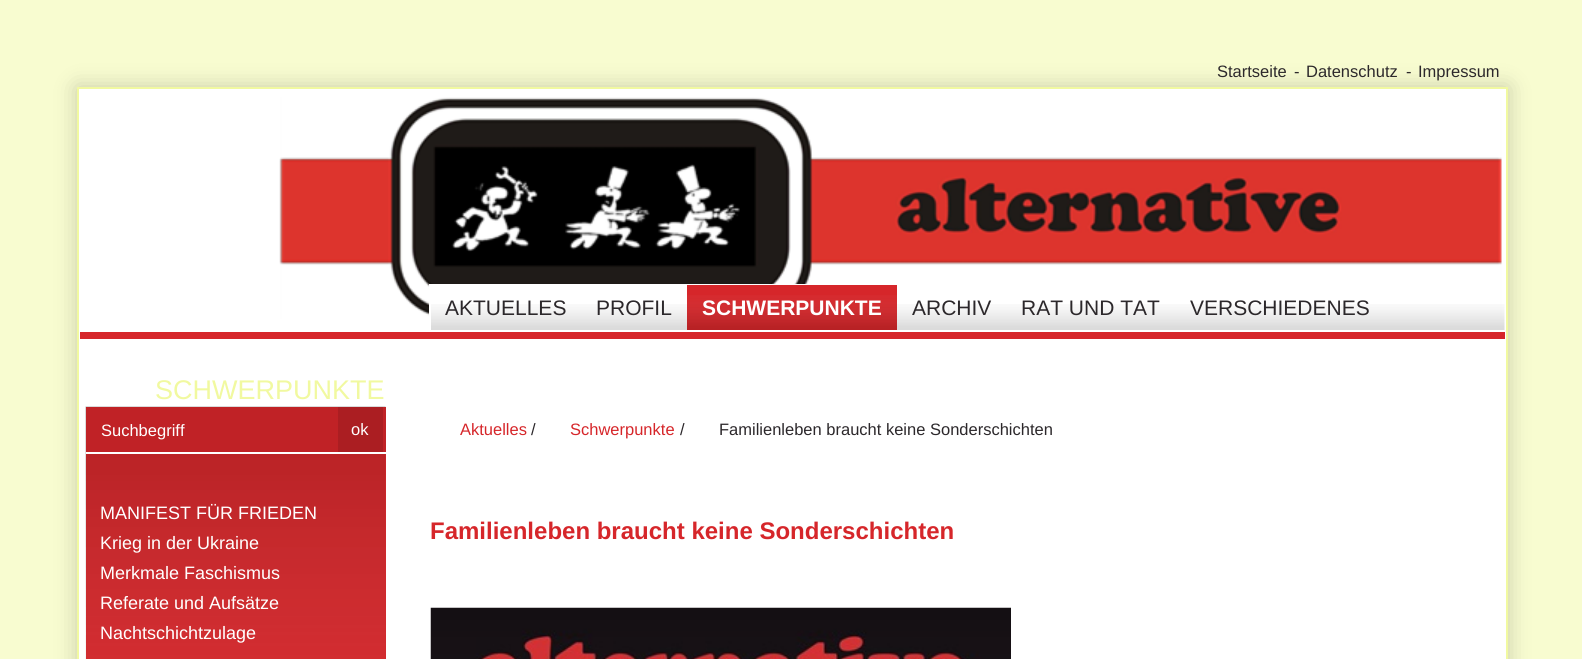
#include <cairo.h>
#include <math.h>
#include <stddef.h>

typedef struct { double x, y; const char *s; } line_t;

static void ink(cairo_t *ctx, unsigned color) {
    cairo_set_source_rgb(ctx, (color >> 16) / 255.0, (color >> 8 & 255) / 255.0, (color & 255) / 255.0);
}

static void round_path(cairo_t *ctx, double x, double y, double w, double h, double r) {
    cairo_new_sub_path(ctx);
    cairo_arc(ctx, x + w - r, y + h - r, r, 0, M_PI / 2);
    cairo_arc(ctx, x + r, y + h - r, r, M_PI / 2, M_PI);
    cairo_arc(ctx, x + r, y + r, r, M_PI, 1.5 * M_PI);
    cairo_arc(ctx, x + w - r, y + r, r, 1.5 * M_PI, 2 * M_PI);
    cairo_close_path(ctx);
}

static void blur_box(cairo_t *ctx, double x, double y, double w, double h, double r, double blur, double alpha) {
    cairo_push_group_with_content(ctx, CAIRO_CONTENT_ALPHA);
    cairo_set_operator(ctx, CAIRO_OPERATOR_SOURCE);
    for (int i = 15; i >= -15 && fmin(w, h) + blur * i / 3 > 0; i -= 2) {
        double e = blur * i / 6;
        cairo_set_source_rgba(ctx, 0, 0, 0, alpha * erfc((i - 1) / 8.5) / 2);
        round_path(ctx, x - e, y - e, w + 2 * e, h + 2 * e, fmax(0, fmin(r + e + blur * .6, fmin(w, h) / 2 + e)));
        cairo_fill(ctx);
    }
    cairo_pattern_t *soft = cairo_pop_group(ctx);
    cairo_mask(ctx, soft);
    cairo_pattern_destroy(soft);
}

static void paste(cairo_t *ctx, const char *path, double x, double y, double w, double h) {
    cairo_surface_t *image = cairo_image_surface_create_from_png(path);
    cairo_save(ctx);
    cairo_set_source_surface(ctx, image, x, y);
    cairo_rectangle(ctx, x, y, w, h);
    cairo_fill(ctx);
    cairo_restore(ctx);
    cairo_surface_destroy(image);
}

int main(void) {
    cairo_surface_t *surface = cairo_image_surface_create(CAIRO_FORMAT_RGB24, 1582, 659);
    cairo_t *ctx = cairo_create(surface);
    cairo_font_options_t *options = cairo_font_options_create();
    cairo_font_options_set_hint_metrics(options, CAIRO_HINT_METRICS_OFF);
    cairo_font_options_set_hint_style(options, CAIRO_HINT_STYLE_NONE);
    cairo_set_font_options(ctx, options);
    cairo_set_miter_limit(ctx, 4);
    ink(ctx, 0xF8FCD0);
    cairo_paint(ctx);
    ink(ctx, 0x000000);
    blur_box(ctx, 77, 87, 1431, 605, 0, 11, 0.2);
    cairo_select_font_face(ctx, "Liberation Sans", CAIRO_FONT_SLANT_NORMAL, CAIRO_FONT_WEIGHT_NORMAL);
    cairo_set_font_size(ctx, 16.5);
    ink(ctx, 0x2C282B);
    {
        static const line_t items[] = {
            {1217, 77, "Startseite"},
            {1294, 77, "-"},
            {1306, 77, "Datenschutz"},
            {1406, 77, "-"},
            {1418, 77, "Impressum"},
        };
        for (size_t i = 0; i < sizeof items / sizeof *items; i++) {
            cairo_move_to(ctx, items[i].x, items[i].y);
            cairo_show_text(ctx, items[i].s);
        }
    }
    ink(ctx, 0xFFFFFF);
    cairo_rectangle(ctx, 78, 88, 1429, 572);
    cairo_fill_preserve(ctx);
    ink(ctx, 0xF1F9A0);
    cairo_stroke(ctx);
    paste(ctx, "media/1.png", 279, 97, 1223, 222);
    ink(ctx, 0xD6262A);
    cairo_rectangle(ctx, 80, 332, 1425, 7);
    cairo_fill(ctx);
    ink(ctx, 0xFFFFFF);
    cairo_rectangle(ctx, 431, 284, 377, 35);
    cairo_fill(ctx);
    paste(ctx, "media/2.png", 431, 304, 1074, 26);
    cairo_rectangle(ctx, 429, 284, 2, 33);
    cairo_fill(ctx);
    cairo_set_font_size(ctx, 21);
    ink(ctx, 0x2C282B);
    cairo_move_to(ctx, 445, 315);
    cairo_show_text(ctx, "AKTUELLES");
    cairo_move_to(ctx, 596, 315);
    cairo_show_text(ctx, "PROFIL");
    ink(ctx, 0xD6262A);
    cairo_rectangle(ctx, 687, 285, 210, 45);
    cairo_fill(ctx);
    paste(ctx, "media/3.png", 687, 295, 210, 35);
    cairo_select_font_face(ctx, "Liberation Sans", CAIRO_FONT_SLANT_NORMAL, CAIRO_FONT_WEIGHT_BOLD);
    ink(ctx, 0xFFFFFF);
    cairo_move_to(ctx, 702, 315);
    cairo_show_text(ctx, "SCHWERPUNKTE");
    cairo_select_font_face(ctx, "Liberation Sans", CAIRO_FONT_SLANT_NORMAL, CAIRO_FONT_WEIGHT_NORMAL);
    ink(ctx, 0x2C282B);
    {
        static const line_t items[] = {
            {912, 315, "ARCHIV"},
            {1021, 315, "RAT UND TAT"},
            {1190, 315, "VERSCHIEDENES"},
        };
        for (size_t i = 0; i < sizeof items / sizeof *items; i++) {
            cairo_move_to(ctx, items[i].x, items[i].y);
            cairo_show_text(ctx, items[i].s);
        }
    }
    cairo_set_font_size(ctx, 27);
    ink(ctx, 0xF1F9A0);
    cairo_move_to(ctx, 155, 399);
    cairo_show_text(ctx, "SCHWERPUNKTE");
    paste(ctx, "media/4.png", 85, 406, 301, 253);
    ink(ctx, 0xD6262A);
    cairo_rectangle(ctx, 86, 454, 300, 205);
    cairo_fill(ctx);
    paste(ctx, "media/5.png", 85, 406, 301, 253);
    ink(ctx, 0xC02226);
    cairo_rectangle(ctx, 86, 407, 300, 45);
    cairo_fill(ctx);
    ink(ctx, 0xFFFFFF);
    cairo_rectangle(ctx, 86, 452, 300, 2);
    cairo_fill(ctx);
    cairo_set_font_size(ctx, 16.5);
    cairo_move_to(ctx, 101, 436);
    cairo_show_text(ctx, "Suchbegriff");
    ink(ctx, 0xAB1E22);
    cairo_rectangle(ctx, 338, 407, 45, 45);
    cairo_fill(ctx);
    ink(ctx, 0xFFFFFF);
    cairo_move_to(ctx, 351, 435);
    cairo_show_text(ctx, "ok");
    cairo_set_font_size(ctx, 18);
    {
        static const line_t items[] = {
            {100, 519, "MANIFEST FÜR FRIEDEN"},
            {100, 549, "Krieg in der Ukraine"},
            {100, 579, "Merkmale Faschismus"},
            {100, 609, "Referate und Aufsätze"},
            {100, 639, "Nachtschichtzulage"},
        };
        for (size_t i = 0; i < sizeof items / sizeof *items; i++) {
            cairo_move_to(ctx, items[i].x, items[i].y);
            cairo_show_text(ctx, items[i].s);
        }
    }
    cairo_set_font_size(ctx, 16.5);
    ink(ctx, 0xD6262A);
    cairo_move_to(ctx, 460, 435);
    cairo_show_text(ctx, "Aktuelles");
    ink(ctx, 0x2C282B);
    cairo_move_to(ctx, 531, 435);
    cairo_show_text(ctx, "/");
    ink(ctx, 0xD6262A);
    cairo_move_to(ctx, 570, 435);
    cairo_show_text(ctx, "Schwerpunkte");
    ink(ctx, 0x2C282B);
    cairo_move_to(ctx, 680, 435);
    cairo_show_text(ctx, "/");
    cairo_move_to(ctx, 719, 435);
    cairo_show_text(ctx, "Familienleben braucht keine Sonderschichten");
    cairo_select_font_face(ctx, "Liberation Sans", CAIRO_FONT_SLANT_NORMAL, CAIRO_FONT_WEIGHT_BOLD);
    cairo_set_font_size(ctx, 24);
    ink(ctx, 0xD6262A);
    cairo_move_to(ctx, 430, 539);
    cairo_show_text(ctx, "Familienleben braucht keine Sonderschichten");
    paste(ctx, "media/6.png", 430, 607, 581, 52);
    cairo_surface_write_to_png(surface, "image.png");
    cairo_font_options_destroy(options);
    cairo_destroy(ctx);
    cairo_surface_destroy(surface);
    return 0;
}
